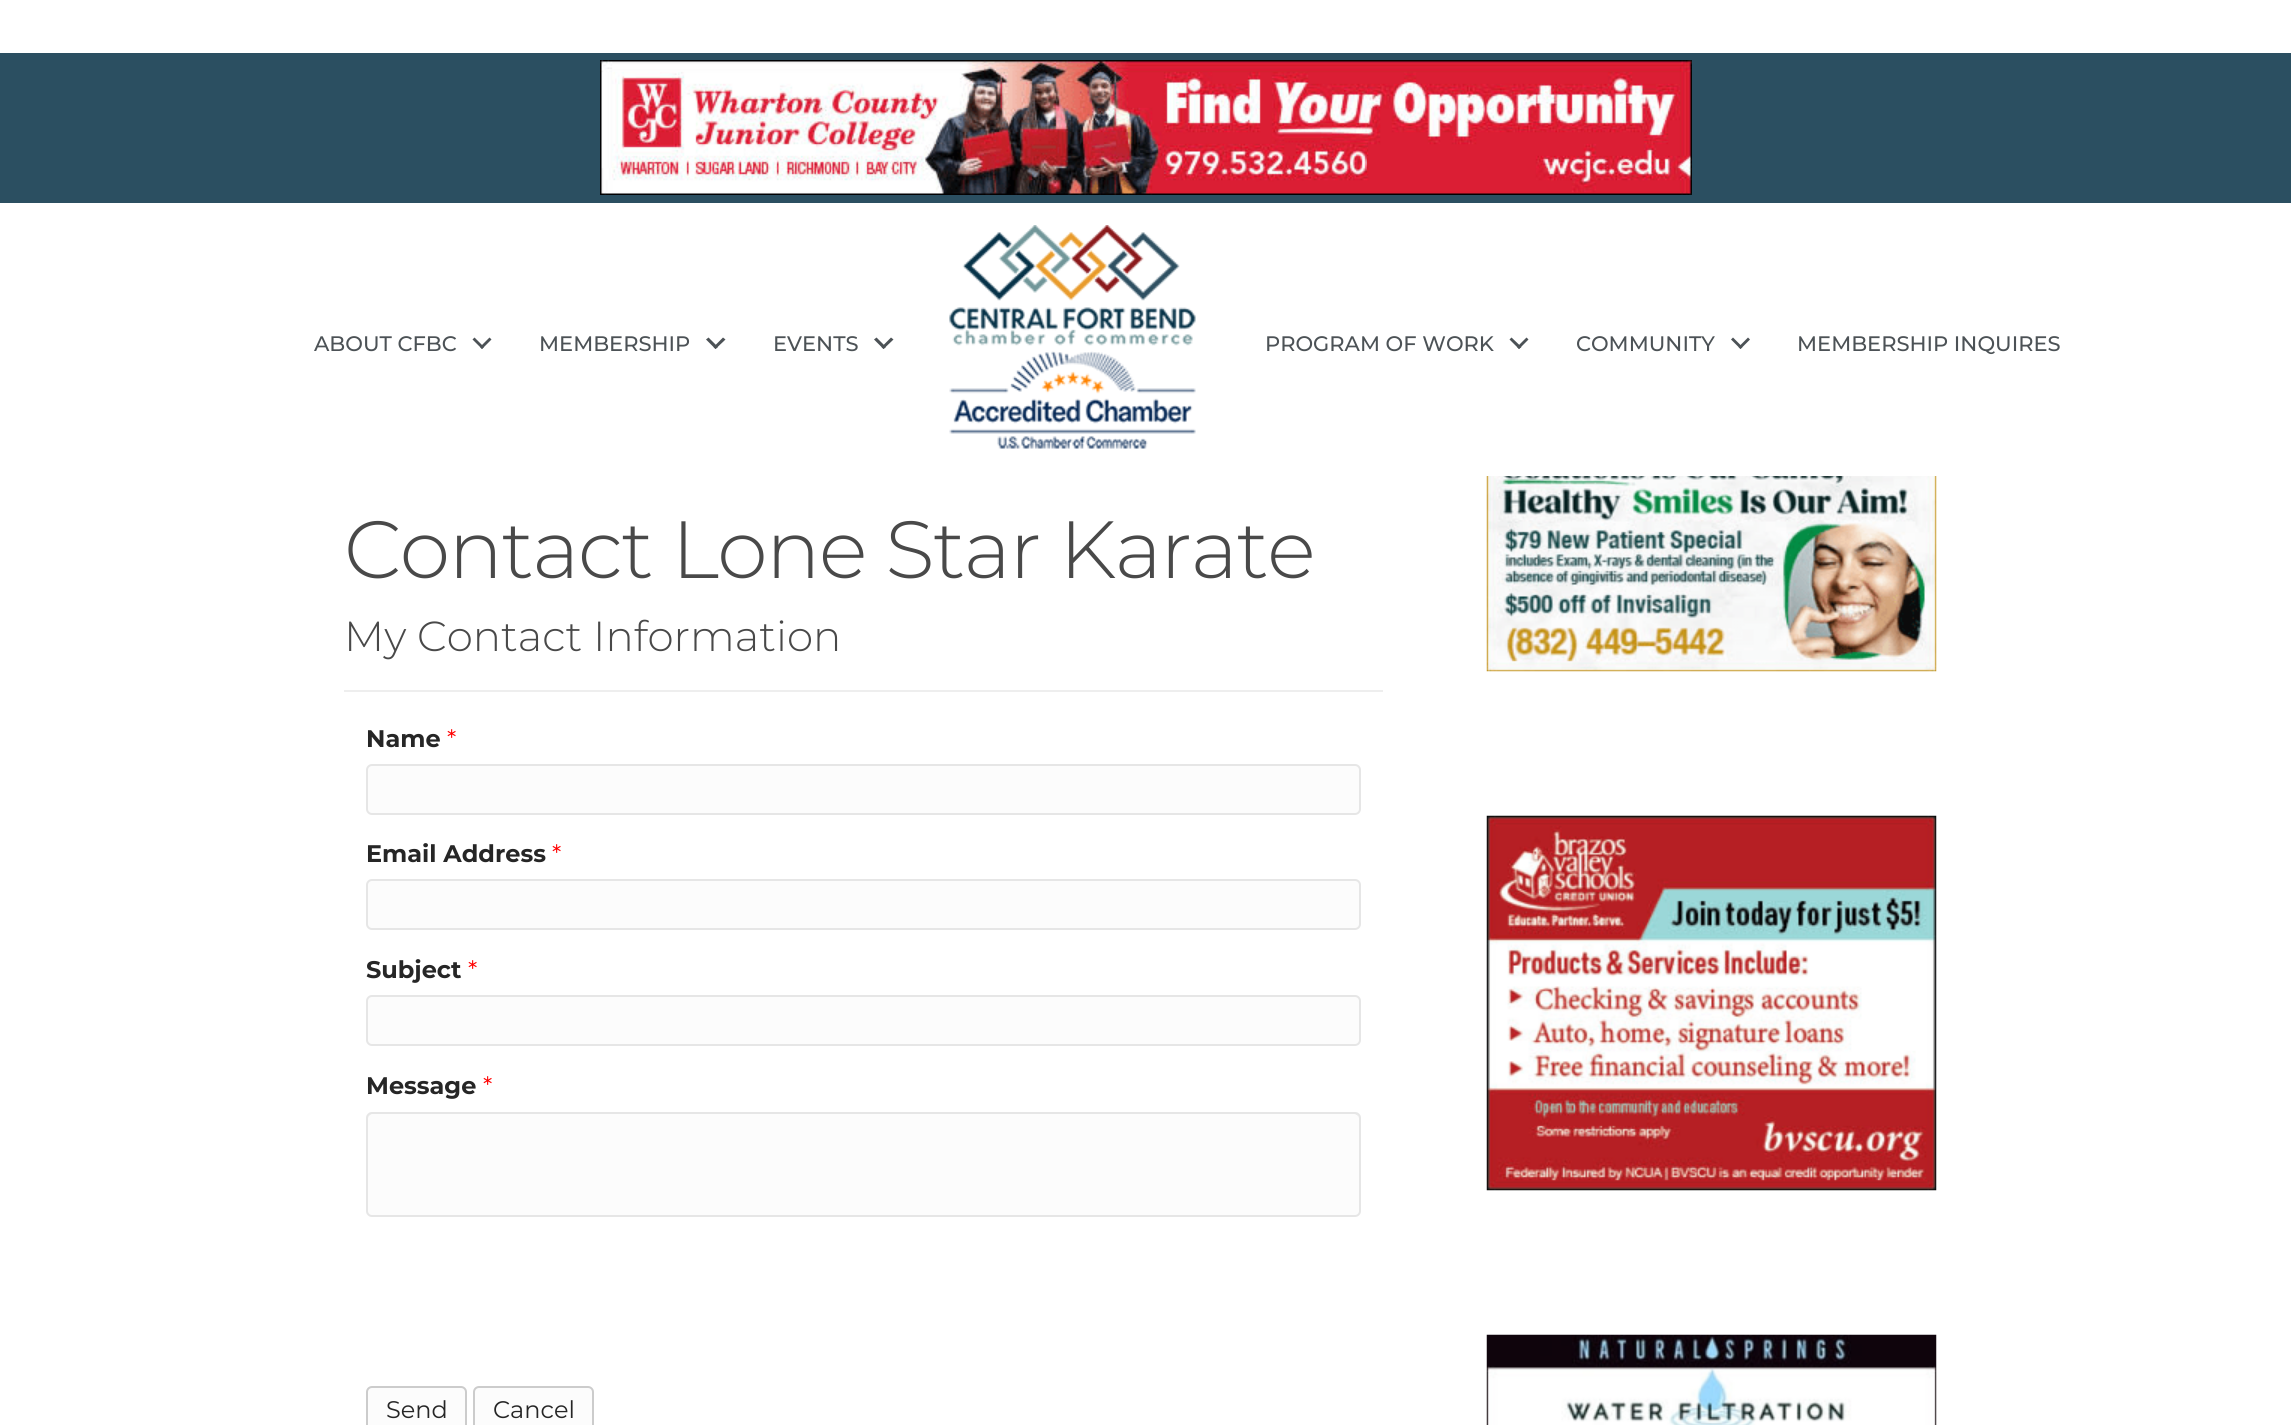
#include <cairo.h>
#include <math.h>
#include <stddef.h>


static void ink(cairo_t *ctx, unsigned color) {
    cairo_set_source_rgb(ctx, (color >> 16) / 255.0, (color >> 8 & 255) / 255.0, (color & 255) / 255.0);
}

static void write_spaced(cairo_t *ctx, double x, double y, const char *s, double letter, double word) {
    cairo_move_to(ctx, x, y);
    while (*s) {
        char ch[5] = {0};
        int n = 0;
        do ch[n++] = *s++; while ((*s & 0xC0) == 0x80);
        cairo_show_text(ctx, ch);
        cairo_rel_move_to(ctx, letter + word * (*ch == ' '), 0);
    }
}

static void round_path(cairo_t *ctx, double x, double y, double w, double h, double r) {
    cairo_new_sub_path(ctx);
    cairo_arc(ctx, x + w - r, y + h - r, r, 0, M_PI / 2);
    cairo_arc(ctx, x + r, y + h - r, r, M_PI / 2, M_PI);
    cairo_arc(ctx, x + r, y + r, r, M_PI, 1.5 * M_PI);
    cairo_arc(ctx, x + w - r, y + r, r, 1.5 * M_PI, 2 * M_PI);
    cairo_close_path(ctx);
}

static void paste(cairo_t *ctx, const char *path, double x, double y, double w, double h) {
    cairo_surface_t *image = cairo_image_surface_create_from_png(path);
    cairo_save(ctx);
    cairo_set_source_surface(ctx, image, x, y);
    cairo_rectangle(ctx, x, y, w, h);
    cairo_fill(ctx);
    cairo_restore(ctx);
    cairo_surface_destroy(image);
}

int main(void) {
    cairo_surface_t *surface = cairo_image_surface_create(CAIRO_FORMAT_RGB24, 2291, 1425);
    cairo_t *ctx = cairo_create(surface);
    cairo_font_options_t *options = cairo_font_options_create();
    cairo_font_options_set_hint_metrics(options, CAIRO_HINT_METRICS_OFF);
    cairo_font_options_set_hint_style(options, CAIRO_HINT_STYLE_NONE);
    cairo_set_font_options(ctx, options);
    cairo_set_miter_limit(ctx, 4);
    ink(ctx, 0xFFFFFF);
    cairo_paint(ctx);
    ink(ctx, 0x2B4F61);
    cairo_rectangle(ctx, 0, 53, 2291, 150);
    cairo_fill(ctx);
    paste(ctx, "media/1.png", 600, 60, 1092, 135);
    cairo_select_font_face(ctx, "Montserrat Medium", CAIRO_FONT_SLANT_NORMAL, CAIRO_FONT_WEIGHT_NORMAL);
    cairo_set_font_size(ctx, 21);
    ink(ctx, 0x4C5256);
    cairo_move_to(ctx, 314, 351);
    cairo_show_text(ctx, "ABOUT CFBC");
    cairo_new_path(ctx);
    cairo_move_to(ctx, 489.5, 337.5);
    cairo_line_to(ctx, 491.5, 339.5);
    cairo_line_to(ctx, 482, 349);
    cairo_line_to(ctx, 480, 347);
    cairo_close_path(ctx);
    cairo_fill(ctx);
    cairo_new_path(ctx);
    cairo_move_to(ctx, 474.5, 337.5);
    cairo_line_to(ctx, 484, 347);
    cairo_line_to(ctx, 482, 349);
    cairo_line_to(ctx, 472.5, 339.5);
    cairo_close_path(ctx);
    cairo_fill(ctx);
    cairo_move_to(ctx, 539, 351);
    cairo_show_text(ctx, "MEMBERSHIP");
    cairo_new_path(ctx);
    cairo_move_to(ctx, 723, 337.5);
    cairo_line_to(ctx, 725.5, 339.5);
    cairo_line_to(ctx, 715.5, 349);
    cairo_line_to(ctx, 713.5, 347);
    cairo_close_path(ctx);
    cairo_fill(ctx);
    cairo_new_path(ctx);
    cairo_move_to(ctx, 708.5, 337.5);
    cairo_line_to(ctx, 718, 347);
    cairo_line_to(ctx, 715.5, 349);
    cairo_line_to(ctx, 706, 339.5);
    cairo_close_path(ctx);
    cairo_fill(ctx);
    cairo_move_to(ctx, 773, 351);
    cairo_show_text(ctx, "EVENTS");
    cairo_new_path(ctx);
    cairo_move_to(ctx, 891, 337.5);
    cairo_line_to(ctx, 893.5, 339.5);
    cairo_line_to(ctx, 883.5, 349);
    cairo_line_to(ctx, 881.5, 347);
    cairo_close_path(ctx);
    cairo_fill(ctx);
    cairo_new_path(ctx);
    cairo_move_to(ctx, 876.5, 337.5);
    cairo_line_to(ctx, 886, 347);
    cairo_line_to(ctx, 883.5, 349);
    cairo_line_to(ctx, 874, 339.5);
    cairo_close_path(ctx);
    cairo_fill(ctx);
    paste(ctx, "media/2.png", 949, 225, 247, 224);
    cairo_move_to(ctx, 1265, 351);
    cairo_show_text(ctx, "PROGRAM OF WORK");
    cairo_new_path(ctx);
    cairo_move_to(ctx, 1526.5, 337.5);
    cairo_line_to(ctx, 1528.5, 339.5);
    cairo_line_to(ctx, 1519, 349);
    cairo_line_to(ctx, 1517, 347);
    cairo_close_path(ctx);
    cairo_fill(ctx);
    cairo_new_path(ctx);
    cairo_move_to(ctx, 1511.5, 337.5);
    cairo_line_to(ctx, 1521.5, 347);
    cairo_line_to(ctx, 1519, 349);
    cairo_line_to(ctx, 1509.5, 339.5);
    cairo_close_path(ctx);
    cairo_fill(ctx);
    cairo_move_to(ctx, 1576, 351);
    cairo_show_text(ctx, "COMMUNITY");
    cairo_new_path(ctx);
    cairo_move_to(ctx, 1748, 337.5);
    cairo_line_to(ctx, 1750, 339.5);
    cairo_line_to(ctx, 1740.5, 349);
    cairo_line_to(ctx, 1738.5, 347);
    cairo_close_path(ctx);
    cairo_fill(ctx);
    cairo_new_path(ctx);
    cairo_move_to(ctx, 1733, 337.5);
    cairo_line_to(ctx, 1742.5, 347);
    cairo_line_to(ctx, 1740.5, 349);
    cairo_line_to(ctx, 1731, 339.5);
    cairo_close_path(ctx);
    cairo_fill(ctx);
    cairo_move_to(ctx, 1797, 351);
    cairo_show_text(ctx, "MEMBERSHIP INQUIRES");
    cairo_select_font_face(ctx, "Montserrat Light", CAIRO_FONT_SLANT_NORMAL, CAIRO_FONT_WEIGHT_NORMAL);
    cairo_set_font_size(ctx, 81);
    ink(ctx, 0x494949);
    write_spaced(ctx, 344, 578, "Contact Lone Star Karate", -1.5, 0);
    cairo_set_font_size(ctx, 42);
    cairo_move_to(ctx, 344, 651);
    cairo_show_text(ctx, "My Contact Information");
    ink(ctx, 0xEEEEEE);
    cairo_rectangle(ctx, 344, 690, 1039, 2);
    cairo_fill(ctx);
    cairo_select_font_face(ctx, "Montserrat", CAIRO_FONT_SLANT_NORMAL, CAIRO_FONT_WEIGHT_BOLD);
    cairo_set_font_size(ctx, 24);
    ink(ctx, 0x262626);
    cairo_move_to(ctx, 366, 747);
    cairo_show_text(ctx, "Name");
    cairo_select_font_face(ctx, "Montserrat", CAIRO_FONT_SLANT_NORMAL, CAIRO_FONT_WEIGHT_NORMAL);
    ink(ctx, 0xFF0000);
    cairo_move_to(ctx, 447, 747);
    cairo_show_text(ctx, "*");
    ink(ctx, 0xFCFCFC);
    round_path(ctx, 367, 765, 993, 49, 5);
    cairo_fill_preserve(ctx);
    ink(ctx, 0xE6E6E6);
    cairo_stroke(ctx);
    cairo_select_font_face(ctx, "Montserrat", CAIRO_FONT_SLANT_NORMAL, CAIRO_FONT_WEIGHT_BOLD);
    ink(ctx, 0x262626);
    cairo_move_to(ctx, 366, 862);
    cairo_show_text(ctx, "Email Address");
    cairo_select_font_face(ctx, "Montserrat", CAIRO_FONT_SLANT_NORMAL, CAIRO_FONT_WEIGHT_NORMAL);
    ink(ctx, 0xFF0000);
    cairo_move_to(ctx, 552, 862);
    cairo_show_text(ctx, "*");
    ink(ctx, 0xFCFCFC);
    round_path(ctx, 367, 880, 993, 49, 5);
    cairo_fill_preserve(ctx);
    ink(ctx, 0xE6E6E6);
    cairo_stroke(ctx);
    cairo_select_font_face(ctx, "Montserrat", CAIRO_FONT_SLANT_NORMAL, CAIRO_FONT_WEIGHT_BOLD);
    ink(ctx, 0x262626);
    cairo_move_to(ctx, 366, 978);
    cairo_show_text(ctx, "Subject");
    cairo_select_font_face(ctx, "Montserrat", CAIRO_FONT_SLANT_NORMAL, CAIRO_FONT_WEIGHT_NORMAL);
    ink(ctx, 0xFF0000);
    cairo_move_to(ctx, 468, 978);
    cairo_show_text(ctx, "*");
    ink(ctx, 0xFCFCFC);
    round_path(ctx, 367, 996, 993, 49, 5);
    cairo_fill_preserve(ctx);
    ink(ctx, 0xE6E6E6);
    cairo_stroke(ctx);
    cairo_select_font_face(ctx, "Montserrat", CAIRO_FONT_SLANT_NORMAL, CAIRO_FONT_WEIGHT_BOLD);
    ink(ctx, 0x262626);
    cairo_move_to(ctx, 366, 1094);
    cairo_show_text(ctx, "Message");
    cairo_select_font_face(ctx, "Montserrat", CAIRO_FONT_SLANT_NORMAL, CAIRO_FONT_WEIGHT_NORMAL);
    ink(ctx, 0xFF0000);
    cairo_move_to(ctx, 483, 1094);
    cairo_show_text(ctx, "*");
    ink(ctx, 0xFCFCFC);
    round_path(ctx, 366, 1112, 995, 105, 6);
    cairo_fill(ctx);
    ink(ctx, 0xE9E9E9);
    cairo_new_path(ctx);
    cairo_move_to(ctx, 372, 1114);
    cairo_line_to(ctx, 1354, 1114);
    cairo_curve_to(ctx, 1357, 1114, 1359, 1117, 1359, 1119);
    cairo_curve_to(ctx, 1359, 1116, 1357, 1113, 1354, 1113);
    cairo_line_to(ctx, 373, 1113);
    cairo_curve_to(ctx, 370, 1113, 368, 1116, 368, 1119);
    cairo_curve_to(ctx, 368, 1117, 370, 1114, 372, 1114);
    cairo_close_path(ctx);
    cairo_fill(ctx);
    round_path(ctx, 367, 1113, 993, 103, 5);
    ink(ctx, 0xE6E6E6);
    cairo_stroke(ctx);
    ink(ctx, 0xFCFCFC);
    round_path(ctx, 367, 1387, 99, 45, 5);
    cairo_fill_preserve(ctx);
    ink(ctx, 0xCCCCCC);
    cairo_stroke(ctx);
    ink(ctx, 0x262626);
    cairo_move_to(ctx, 386, 1418);
    cairo_show_text(ctx, "Send");
    ink(ctx, 0xFCFCFC);
    round_path(ctx, 474, 1387, 119, 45, 5);
    cairo_fill_preserve(ctx);
    ink(ctx, 0xCCCCCC);
    cairo_stroke(ctx);
    ink(ctx, 0x262626);
    cairo_move_to(ctx, 493, 1418);
    cairo_show_text(ctx, "Cancel");
    paste(ctx, "media/3.png", 1486, 476, 451, 196);
    paste(ctx, "media/4.png", 1486, 815, 451, 376);
    paste(ctx, "media/5.png", 1486, 1334, 451, 91);
    cairo_surface_write_to_png(surface, "image.png");
    cairo_font_options_destroy(options);
    cairo_destroy(ctx);
    cairo_surface_destroy(surface);
    return 0;
}
